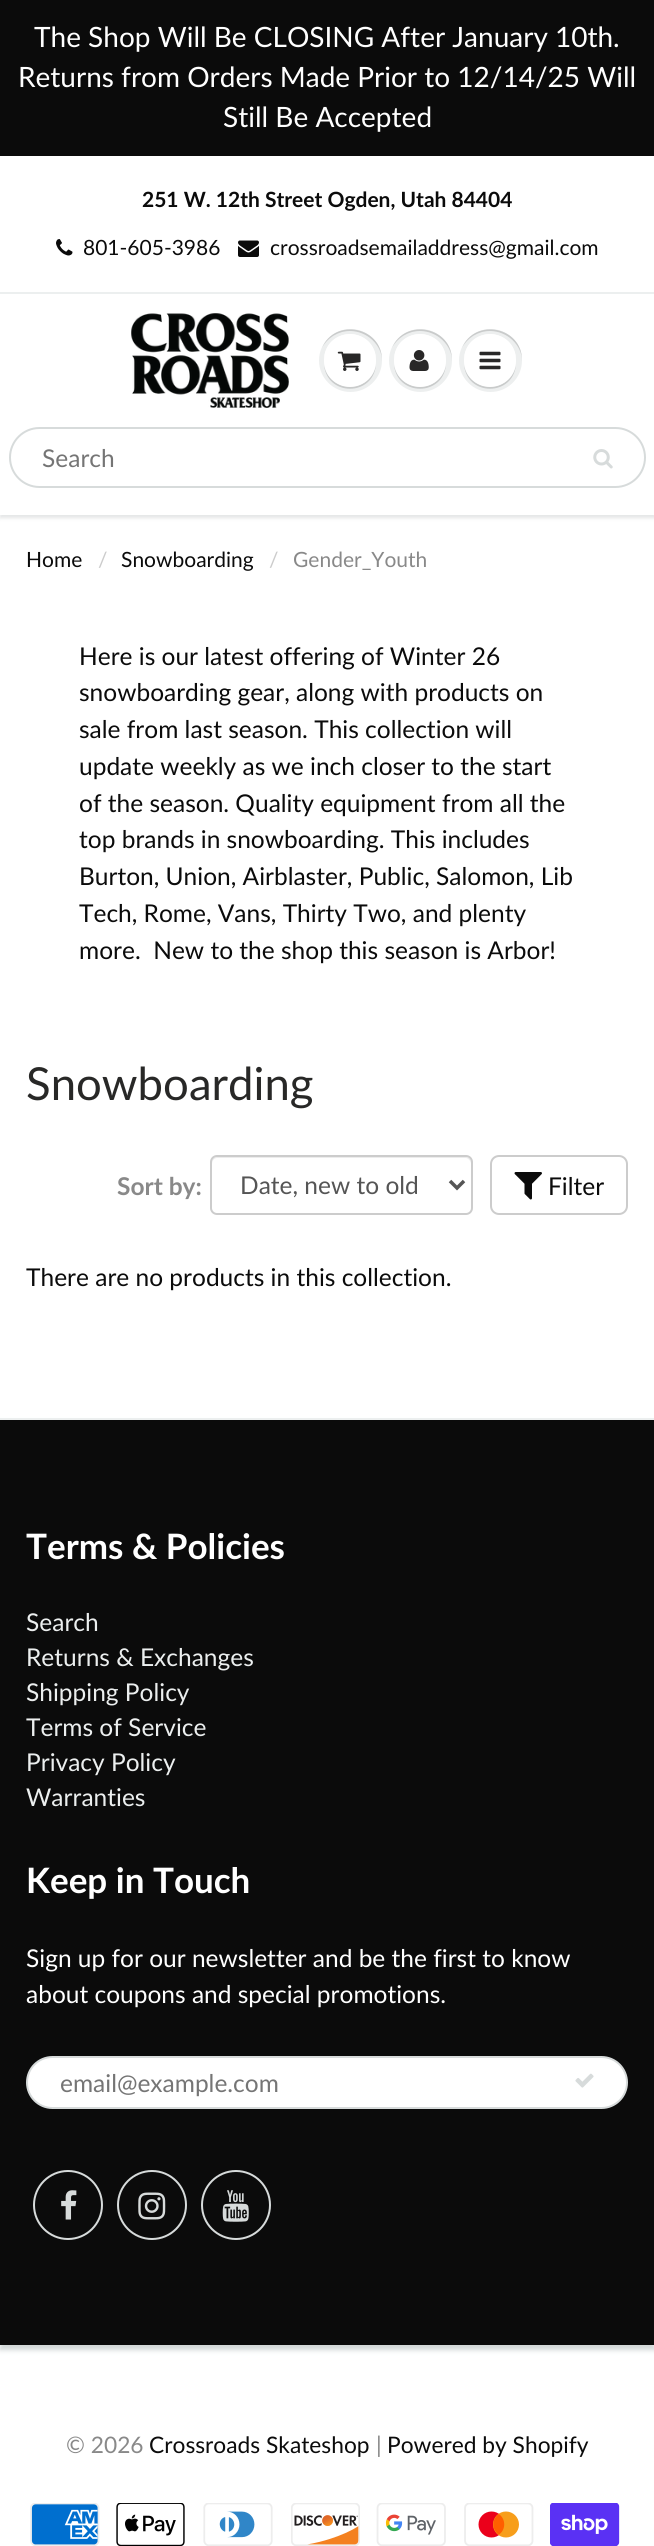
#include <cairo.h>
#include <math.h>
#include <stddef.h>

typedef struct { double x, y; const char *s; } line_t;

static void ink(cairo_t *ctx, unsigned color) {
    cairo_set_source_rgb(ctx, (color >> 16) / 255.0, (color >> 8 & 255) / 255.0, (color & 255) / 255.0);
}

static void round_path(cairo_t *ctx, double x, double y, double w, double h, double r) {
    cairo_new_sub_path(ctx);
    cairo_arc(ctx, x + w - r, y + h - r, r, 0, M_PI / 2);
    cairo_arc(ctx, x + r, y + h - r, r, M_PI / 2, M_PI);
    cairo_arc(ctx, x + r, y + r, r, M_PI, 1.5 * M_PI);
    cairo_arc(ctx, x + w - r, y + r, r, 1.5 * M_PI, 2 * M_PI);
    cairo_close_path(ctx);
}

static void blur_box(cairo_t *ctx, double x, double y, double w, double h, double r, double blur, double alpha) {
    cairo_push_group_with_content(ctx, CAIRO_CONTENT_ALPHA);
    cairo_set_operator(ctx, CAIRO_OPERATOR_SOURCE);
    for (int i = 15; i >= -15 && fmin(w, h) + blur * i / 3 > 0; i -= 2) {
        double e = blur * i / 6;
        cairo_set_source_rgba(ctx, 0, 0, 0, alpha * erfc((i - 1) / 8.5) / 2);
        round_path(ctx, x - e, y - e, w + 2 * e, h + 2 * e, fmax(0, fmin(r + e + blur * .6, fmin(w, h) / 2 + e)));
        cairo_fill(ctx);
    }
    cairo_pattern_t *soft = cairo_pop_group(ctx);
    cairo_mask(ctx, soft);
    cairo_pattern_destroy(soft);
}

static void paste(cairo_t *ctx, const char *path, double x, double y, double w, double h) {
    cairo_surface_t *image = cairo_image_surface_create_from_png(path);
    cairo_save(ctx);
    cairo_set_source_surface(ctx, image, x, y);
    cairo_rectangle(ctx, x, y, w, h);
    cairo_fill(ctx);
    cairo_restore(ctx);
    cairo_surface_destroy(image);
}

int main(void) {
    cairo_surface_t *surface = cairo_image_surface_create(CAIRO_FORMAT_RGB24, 654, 2546);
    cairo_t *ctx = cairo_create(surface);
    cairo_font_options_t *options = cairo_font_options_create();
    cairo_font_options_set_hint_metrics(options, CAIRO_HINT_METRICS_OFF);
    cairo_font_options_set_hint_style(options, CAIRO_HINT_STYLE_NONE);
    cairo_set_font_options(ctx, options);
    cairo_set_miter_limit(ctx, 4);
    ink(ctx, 0xFFFFFF);
    cairo_paint(ctx);
    ink(ctx, 0x0B0B0B);
    cairo_rectangle(ctx, 0, 0, 654, 156);
    cairo_fill(ctx);
    cairo_select_font_face(ctx, "Lato", CAIRO_FONT_SLANT_NORMAL, CAIRO_FONT_WEIGHT_NORMAL);
    cairo_set_font_size(ctx, 28);
    ink(ctx, 0xFFFFFF);
    {
        static const line_t items[] = {
            {34, 47, "The Shop Will Be CLOSING After January 10th."},
            {18, 87, "Returns from Orders Made Prior to 12/14/25 Will"},
            {223, 127, "Still Be Accepted"},
        };
        for (size_t i = 0; i < sizeof items / sizeof *items; i++) {
            cairo_move_to(ctx, items[i].x, items[i].y);
            cairo_show_text(ctx, items[i].s);
        }
    }
    cairo_select_font_face(ctx, "Lato", CAIRO_FONT_SLANT_NORMAL, CAIRO_FONT_WEIGHT_BOLD);
    cairo_set_font_size(ctx, 21);
    ink(ctx, 0x0B0B0B);
    cairo_move_to(ctx, 142, 207);
    cairo_show_text(ctx, "251 W. 12th Street Ogden, Utah 84404");
    paste(ctx, "media/1.png", 56, 239, 17, 17);
    cairo_select_font_face(ctx, "Lato", CAIRO_FONT_SLANT_NORMAL, CAIRO_FONT_WEIGHT_NORMAL);
    cairo_move_to(ctx, 83, 255);
    cairo_show_text(ctx, "801-605-3986");
    paste(ctx, "media/2.png", 238, 240, 21, 17);
    cairo_move_to(ctx, 270, 255);
    cairo_show_text(ctx, "crossroadsemailaddress@gmail.com");
    ink(ctx, 0x0B191C);
    blur_box(ctx, 0, 296, 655, 222, 0, 2, 0.12);
    ink(ctx, 0xFFFFFF);
    cairo_rectangle(ctx, 0, 294, 654, 221);
    cairo_fill(ctx);
    ink(ctx, 0xECEFEF);
    cairo_rectangle(ctx, 0, 292, 654, 2);
    cairo_fill(ctx);
    paste(ctx, "media/3.png", 131, 313, 158, 95);
    ink(ctx, 0xEDEFEF);
    cairo_arc(ctx, 350.5, 360.5, 31.5, 0, 2 * M_PI);
    cairo_fill(ctx);
    ink(ctx, 0xC9CBCB);
    cairo_new_path(ctx);
    cairo_move_to(ctx, 324, 364);
    cairo_curve_to(ctx, 326, 397, 374, 397, 376, 364);
    cairo_curve_to(ctx, 372, 394, 328, 394, 324, 364);
    cairo_close_path(ctx);
    cairo_fill(ctx);
    cairo_new_path(ctx);
    cairo_move_to(ctx, 350, 331);
    cairo_curve_to(ctx, 367, 331, 382, 345, 382, 361);
    cairo_curve_to(ctx, 383, 327, 335, 317, 322, 348);
    cairo_curve_to(ctx, 327, 338, 338, 331, 350, 331);
    cairo_close_path(ctx);
    cairo_fill(ctx);
    ink(ctx, 0xFFFFFF);
    round_path(ctx, 324, 334, 52, 53, 26);
    cairo_fill(ctx);
    cairo_new_path(ctx);
    cairo_move_to(ctx, 350, 336);
    cairo_curve_to(ctx, 364, 336, 376, 348, 376, 362);
    cairo_curve_to(ctx, 377, 325, 323, 325, 324, 362);
    cairo_curve_to(ctx, 324, 348, 336, 336, 350, 336);
    cairo_close_path(ctx);
    cairo_fill(ctx);
    paste(ctx, "media/4.png", 337, 351, 24, 20);
    ink(ctx, 0xEDEFEF);
    cairo_arc(ctx, 420.5, 360.5, 31.5, 0, 2 * M_PI);
    cairo_fill(ctx);
    ink(ctx, 0xC9CBCB);
    cairo_new_path(ctx);
    cairo_move_to(ctx, 394, 364);
    cairo_curve_to(ctx, 396, 397, 444, 397, 446, 364);
    cairo_curve_to(ctx, 442, 394, 398, 394, 394, 364);
    cairo_close_path(ctx);
    cairo_fill(ctx);
    cairo_new_path(ctx);
    cairo_move_to(ctx, 420, 331);
    cairo_curve_to(ctx, 437, 331, 452, 345, 452, 361);
    cairo_curve_to(ctx, 453, 327, 405, 317, 392, 348);
    cairo_curve_to(ctx, 397, 338, 408, 331, 420, 331);
    cairo_close_path(ctx);
    cairo_fill(ctx);
    ink(ctx, 0xFFFFFF);
    round_path(ctx, 394, 334, 52, 53, 26);
    cairo_fill(ctx);
    cairo_new_path(ctx);
    cairo_move_to(ctx, 420, 336);
    cairo_curve_to(ctx, 434, 336, 446, 348, 446, 362);
    cairo_curve_to(ctx, 447, 325, 393, 325, 394, 362);
    cairo_curve_to(ctx, 394, 348, 406, 336, 420, 336);
    cairo_close_path(ctx);
    cairo_fill(ctx);
    paste(ctx, "media/5.png", 409, 350, 20, 21);
    ink(ctx, 0xEDEFEF);
    cairo_arc(ctx, 490.5, 360.5, 31.5, 0, 2 * M_PI);
    cairo_fill(ctx);
    ink(ctx, 0xC9CBCB);
    cairo_new_path(ctx);
    cairo_move_to(ctx, 464, 364);
    cairo_curve_to(ctx, 466, 397, 514, 397, 516, 364);
    cairo_curve_to(ctx, 512, 394, 468, 394, 464, 364);
    cairo_close_path(ctx);
    cairo_fill(ctx);
    cairo_new_path(ctx);
    cairo_move_to(ctx, 490, 331);
    cairo_curve_to(ctx, 507, 331, 522, 345, 522, 361);
    cairo_curve_to(ctx, 523, 327, 475, 317, 462, 348);
    cairo_curve_to(ctx, 467, 338, 478, 331, 490, 331);
    cairo_close_path(ctx);
    cairo_fill(ctx);
    ink(ctx, 0xFFFFFF);
    round_path(ctx, 464, 334, 52, 53, 26);
    cairo_fill(ctx);
    cairo_new_path(ctx);
    cairo_move_to(ctx, 490, 336);
    cairo_curve_to(ctx, 504, 336, 516, 348, 516, 362);
    cairo_curve_to(ctx, 517, 325, 463, 325, 464, 362);
    cairo_curve_to(ctx, 464, 348, 476, 336, 490, 336);
    cairo_close_path(ctx);
    cairo_fill(ctx);
    paste(ctx, "media/6.png", 479, 351, 22, 19);
    round_path(ctx, 10, 428, 635, 59, 29.5);
    ink(ctx, 0xD7DBDB);
    cairo_stroke(ctx);
    cairo_set_font_size(ctx, 24.5);
    ink(ctx, 0x757575);
    cairo_move_to(ctx, 42, 467);
    cairo_show_text(ctx, "Search");
    paste(ctx, "media/7.png", 593, 449, 20, 20);
    cairo_set_font_size(ctx, 21);
    ink(ctx, 0x0B0B0B);
    cairo_move_to(ctx, 26, 567);
    cairo_show_text(ctx, "Home");
    ink(ctx, 0xCCCCCC);
    cairo_move_to(ctx, 98, 567);
    cairo_show_text(ctx, "/");
    ink(ctx, 0x0B0B0B);
    cairo_move_to(ctx, 121, 567);
    cairo_show_text(ctx, "Snowboarding");
    ink(ctx, 0xCCCCCC);
    cairo_move_to(ctx, 269, 567);
    cairo_show_text(ctx, "/");
    ink(ctx, 0x898989);
    cairo_move_to(ctx, 293, 567);
    cairo_show_text(ctx, "Gender_Youth");
    cairo_set_font_size(ctx, 24.5);
    ink(ctx, 0x0B0B0B);
    {
        static const line_t items[] = {
            {79, 665, "Here is our latest offering of Winter 26"},
            {79, 701, "snowboarding gear, along with products on"},
            {79, 738, "sale from last season. This collection will"},
            {79, 775, "update weekly as we inch closer to the start"},
            {79, 812, "of the season. Quality equipment from all the"},
            {79, 848, "top brands in snowboarding. This includes"},
            {79, 885, "Burton, Union, Airblaster, Public, Salomon, Lib"},
            {79, 922, "Tech, Rome, Vans, Thirty Two, and plenty"},
            {79, 959, "more.  New to the shop this season is Arbor!"},
        };
        for (size_t i = 0; i < sizeof items / sizeof *items; i++) {
            cairo_move_to(ctx, items[i].x, items[i].y);
            cairo_show_text(ctx, items[i].s);
        }
    }
    cairo_set_font_size(ctx, 45.5);
    ink(ctx, 0x282827);
    cairo_move_to(ctx, 26, 1100);
    cairo_show_text(ctx, "Snowboarding");
    cairo_select_font_face(ctx, "Lato", CAIRO_FONT_SLANT_NORMAL, CAIRO_FONT_WEIGHT_BOLD);
    cairo_set_font_size(ctx, 24.5);
    ink(ctx, 0x898989);
    cairo_move_to(ctx, 117, 1195);
    cairo_show_text(ctx, "Sort by:");
    ink(ctx, 0xECECEC);
    cairo_new_path(ctx);
    cairo_move_to(ctx, 217, 1158);
    cairo_line_to(ctx, 466, 1158);
    cairo_curve_to(ctx, 468, 1158, 471, 1161, 471, 1164);
    cairo_line_to(ctx, 471, 1162);
    cairo_curve_to(ctx, 471, 1159, 469, 1157, 466, 1157);
    cairo_line_to(ctx, 217, 1157);
    cairo_curve_to(ctx, 214, 1157, 212, 1159, 212, 1162);
    cairo_line_to(ctx, 212, 1164);
    cairo_curve_to(ctx, 212, 1161, 214, 1158, 217, 1158);
    cairo_close_path(ctx);
    cairo_fill(ctx);
    round_path(ctx, 211, 1156, 261, 58, 6);
    ink(ctx, 0xCCCCCC);
    cairo_stroke(ctx);
    cairo_new_path(ctx);
    cairo_move_to(ctx, 450, 1181);
    cairo_line_to(ctx, 457, 1188);
    cairo_line_to(ctx, 464, 1181);
    ink(ctx, 0x555555);
    cairo_set_line_width(ctx, 3.5);
    cairo_stroke(ctx);
    cairo_select_font_face(ctx, "Lato", CAIRO_FONT_SLANT_NORMAL, CAIRO_FONT_WEIGHT_NORMAL);
    cairo_move_to(ctx, 240, 1194);
    cairo_show_text(ctx, "Date, new to old");
    round_path(ctx, 491, 1156, 136, 58, 8);
    ink(ctx, 0xCCCCCC);
    cairo_set_line_width(ctx, 2);
    cairo_stroke(ctx);
    paste(ctx, "media/8.png", 514, 1172, 28, 28);
    ink(ctx, 0x0B0B0B);
    cairo_move_to(ctx, 548, 1195);
    cairo_show_text(ctx, "Filter");
    cairo_move_to(ctx, 26, 1286);
    cairo_show_text(ctx, "There are no products in this collection.");
    ink(ctx, 0xD1D7D7);
    blur_box(ctx, 0, 1423, 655, 927, 0, 2.5, 1);
    ink(ctx, 0x0B0B0B);
    cairo_rectangle(ctx, 0, 1420, 654, 925);
    cairo_fill(ctx);
    ink(ctx, 0xECEFEF);
    cairo_rectangle(ctx, 0, 1418, 654, 2);
    cairo_fill(ctx);
    cairo_select_font_face(ctx, "Lato", CAIRO_FONT_SLANT_NORMAL, CAIRO_FONT_WEIGHT_BOLD);
    cairo_set_font_size(ctx, 35);
    ink(ctx, 0xFFFFFF);
    cairo_move_to(ctx, 26, 1559);
    cairo_show_text(ctx, "Terms & Policies");
    cairo_select_font_face(ctx, "Lato", CAIRO_FONT_SLANT_NORMAL, CAIRO_FONT_WEIGHT_NORMAL);
    cairo_set_font_size(ctx, 24.5);
    ink(ctx, 0xECEFEF);
    {
        static const line_t items[] = {
            {26, 1631, "Search"},
            {26, 1666, "Returns & Exchanges"},
            {26, 1701, "Shipping Policy"},
            {26, 1736, "Terms of Service"},
            {26, 1771, "Privacy Policy"},
            {26, 1806, "Warranties"},
        };
        for (size_t i = 0; i < sizeof items / sizeof *items; i++) {
            cairo_move_to(ctx, items[i].x, items[i].y);
            cairo_show_text(ctx, items[i].s);
        }
    }
    cairo_select_font_face(ctx, "Lato", CAIRO_FONT_SLANT_NORMAL, CAIRO_FONT_WEIGHT_BOLD);
    cairo_set_font_size(ctx, 35);
    ink(ctx, 0xFFFFFF);
    cairo_move_to(ctx, 26, 1893);
    cairo_show_text(ctx, "Keep in Touch");
    cairo_select_font_face(ctx, "Lato", CAIRO_FONT_SLANT_NORMAL, CAIRO_FONT_WEIGHT_NORMAL);
    cairo_set_font_size(ctx, 24.5);
    cairo_move_to(ctx, 26, 1967);
    cairo_show_text(ctx, "Sign up for our newsletter and be the first to know");
    cairo_move_to(ctx, 26, 2003);
    cairo_show_text(ctx, "about coupons and special promotions.");
    round_path(ctx, 27, 2057, 600, 51, 25.5);
    cairo_fill_preserve(ctx);
    ink(ctx, 0xD7DBDB);
    cairo_stroke(ctx);
    ink(ctx, 0x757575);
    cairo_move_to(ctx, 60, 2092);
    cairo_show_text(ctx, "email@example.com");
    paste(ctx, "media/9.png", 575, 2073, 19, 15);
    cairo_arc(ctx, 68, 2205, 34, 0, 2 * M_PI);
    ink(ctx, 0xD7DBDB);
    cairo_stroke(ctx);
    paste(ctx, "media/10.png", 61, 2190, 16, 30);
    cairo_arc(ctx, 152, 2205, 34, 0, 2 * M_PI);
    cairo_stroke(ctx);
    paste(ctx, "media/11.png", 138, 2192, 28, 28);
    cairo_arc(ctx, 236, 2205, 34, 0, 2 * M_PI);
    cairo_stroke(ctx);
    paste(ctx, "media/12.png", 222, 2190, 27, 32);
    cairo_set_font_size(ctx, 22.75);
    ink(ctx, 0x898989);
    cairo_move_to(ctx, 66, 2453);
    cairo_show_text(ctx, "© 2026");
    ink(ctx, 0x0B0B0B);
    cairo_move_to(ctx, 149, 2453);
    cairo_show_text(ctx, "Crossroads Skateshop");
    ink(ctx, 0x898989);
    cairo_move_to(ctx, 376, 2453);
    cairo_show_text(ctx, "|");
    ink(ctx, 0x0B0B0B);
    cairo_move_to(ctx, 387, 2453);
    cairo_show_text(ctx, "Powered by Shopify");
    paste(ctx, "media/13.png", 30, 2503, 70, 43);
    paste(ctx, "media/14.png", 116, 2503, 69, 43);
    paste(ctx, "media/15.png", 203, 2503, 70, 43);
    paste(ctx, "media/16.png", 291, 2503, 69, 43);
    paste(ctx, "media/17.png", 376, 2503, 70, 43);
    paste(ctx, "media/18.png", 464, 2503, 70, 43);
    paste(ctx, "media/19.png", 550, 2503, 70, 43);
    cairo_surface_write_to_png(surface, "image.png");
    cairo_font_options_destroy(options);
    cairo_destroy(ctx);
    cairo_surface_destroy(surface);
    return 0;
}
